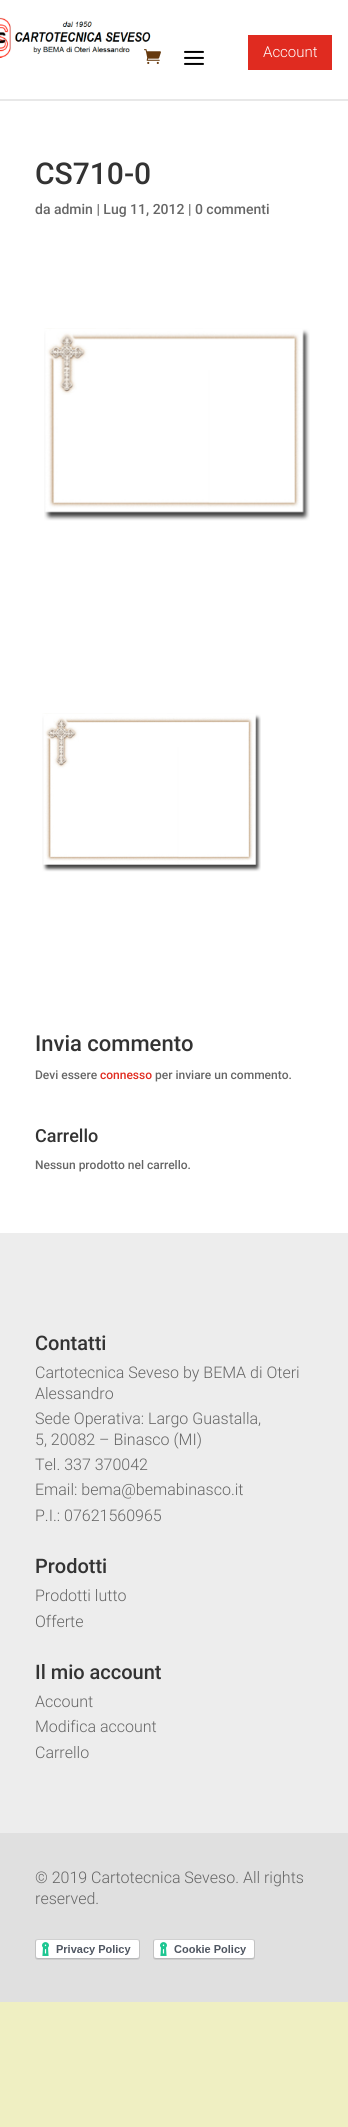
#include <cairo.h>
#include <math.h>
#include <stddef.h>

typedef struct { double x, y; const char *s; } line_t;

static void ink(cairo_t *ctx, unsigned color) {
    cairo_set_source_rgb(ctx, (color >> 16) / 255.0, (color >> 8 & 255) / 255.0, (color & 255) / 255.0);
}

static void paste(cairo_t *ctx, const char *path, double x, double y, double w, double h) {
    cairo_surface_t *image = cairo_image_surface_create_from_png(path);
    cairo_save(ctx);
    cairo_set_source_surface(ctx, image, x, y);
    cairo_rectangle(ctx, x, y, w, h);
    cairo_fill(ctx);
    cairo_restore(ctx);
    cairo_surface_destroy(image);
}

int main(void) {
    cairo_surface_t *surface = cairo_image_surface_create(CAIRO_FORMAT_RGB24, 348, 2127);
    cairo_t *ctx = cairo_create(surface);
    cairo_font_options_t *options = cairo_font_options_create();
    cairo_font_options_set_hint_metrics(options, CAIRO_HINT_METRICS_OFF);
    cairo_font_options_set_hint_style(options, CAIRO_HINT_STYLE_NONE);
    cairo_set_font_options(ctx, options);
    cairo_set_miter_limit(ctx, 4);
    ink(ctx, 0xEFEFC2);
    cairo_paint(ctx);
    ink(ctx, 0xFFFFFF);
    cairo_rectangle(ctx, 0, 0, 348, 99);
    cairo_fill(ctx);
    ink(ctx, 0xE8E8E8);
    cairo_rectangle(ctx, 0, 99, 348, 2);
    cairo_fill(ctx);
    paste(ctx, "media/1.png", 0, 17, 151, 41);
    paste(ctx, "media/2.png", 144, 49, 17, 15);
    paste(ctx, "media/3.png", 184, 50, 20, 15);
    ink(ctx, 0xE02B20);
    cairo_rectangle(ctx, 248, 35, 84, 35);
    cairo_fill(ctx);
    cairo_select_font_face(ctx, "Roboto Light", CAIRO_FONT_SLANT_NORMAL, CAIRO_FONT_WEIGHT_NORMAL);
    cairo_set_font_size(ctx, 15);
    ink(ctx, 0xFFFFFF);
    cairo_move_to(ctx, 263, 57);
    cairo_show_text(ctx, "Account");
    cairo_rectangle(ctx, 0, 101, 348, 1132);
    cairo_fill(ctx);
    cairo_select_font_face(ctx, "Roboto Medium", CAIRO_FONT_SLANT_NORMAL, CAIRO_FONT_WEIGHT_NORMAL);
    cairo_set_font_size(ctx, 30);
    ink(ctx, 0x333333);
    cairo_move_to(ctx, 35, 184);
    cairo_show_text(ctx, "CS710-0");
    cairo_set_font_size(ctx, 14);
    ink(ctx, 0x666666);
    cairo_move_to(ctx, 35, 214);
    cairo_show_text(ctx, "da admin | Lug 11, 2012 | 0 commenti");
    paste(ctx, "media/4.png", 44, 328, 266, 193);
    paste(ctx, "media/5.png", 42, 713, 219, 159);
    cairo_set_font_size(ctx, 22);
    ink(ctx, 0x333333);
    cairo_move_to(ctx, 35, 1051);
    cairo_show_text(ctx, "Invia commento");
    cairo_set_font_size(ctx, 12);
    ink(ctx, 0x666666);
    cairo_move_to(ctx, 35, 1079);
    cairo_show_text(ctx, "Devi essere");
    ink(ctx, 0xE02B20);
    cairo_move_to(ctx, 100, 1079);
    cairo_show_text(ctx, "connesso");
    ink(ctx, 0x666666);
    cairo_move_to(ctx, 155, 1079);
    cairo_show_text(ctx, "per inviare un commento.");
    cairo_set_font_size(ctx, 18);
    ink(ctx, 0x333333);
    cairo_move_to(ctx, 35, 1142);
    cairo_show_text(ctx, "Carrello");
    cairo_set_font_size(ctx, 12);
    ink(ctx, 0x666666);
    cairo_move_to(ctx, 35, 1169);
    cairo_show_text(ctx, "Nessun prodotto nel carrello.");
    ink(ctx, 0xEDEDED);
    cairo_rectangle(ctx, 0, 1233, 348, 600);
    cairo_fill(ctx);
    cairo_set_font_size(ctx, 20);
    ink(ctx, 0x333333);
    cairo_move_to(ctx, 35, 1350);
    cairo_show_text(ctx, "Contatti");
    cairo_select_font_face(ctx, "Roboto Light", CAIRO_FONT_SLANT_NORMAL, CAIRO_FONT_WEIGHT_NORMAL);
    cairo_set_font_size(ctx, 16);
    ink(ctx, 0x666666);
    {
        static const line_t items[] = {
            {35, 1378, "Cartotecnica Seveso by BEMA di Oteri"},
            {35, 1399, "Alessandro"},
            {35, 1424, "Sede Operativa: Largo Guastalla,"},
            {35, 1445, "5, 20082 – Binasco (MI)"},
            {35, 1470, "Tel. 337 370042"},
            {35, 1495, "Email: bema@bemabinasco.it"},
            {35, 1521, "P.I.: 07621560965"},
        };
        for (size_t i = 0; i < sizeof items / sizeof *items; i++) {
            cairo_move_to(ctx, items[i].x, items[i].y);
            cairo_show_text(ctx, items[i].s);
        }
    }
    cairo_select_font_face(ctx, "Roboto Medium", CAIRO_FONT_SLANT_NORMAL, CAIRO_FONT_WEIGHT_NORMAL);
    cairo_set_font_size(ctx, 20);
    ink(ctx, 0x333333);
    cairo_move_to(ctx, 35, 1573);
    cairo_show_text(ctx, "Prodotti");
    cairo_select_font_face(ctx, "Roboto Light", CAIRO_FONT_SLANT_NORMAL, CAIRO_FONT_WEIGHT_NORMAL);
    cairo_set_font_size(ctx, 16);
    ink(ctx, 0x666666);
    cairo_move_to(ctx, 35, 1601);
    cairo_show_text(ctx, "Prodotti lutto");
    cairo_move_to(ctx, 35, 1627);
    cairo_show_text(ctx, "Offerte");
    cairo_select_font_face(ctx, "Roboto Medium", CAIRO_FONT_SLANT_NORMAL, CAIRO_FONT_WEIGHT_NORMAL);
    cairo_set_font_size(ctx, 20);
    ink(ctx, 0x333333);
    cairo_move_to(ctx, 35, 1679);
    cairo_show_text(ctx, "Il mio account");
    cairo_select_font_face(ctx, "Roboto Light", CAIRO_FONT_SLANT_NORMAL, CAIRO_FONT_WEIGHT_NORMAL);
    cairo_set_font_size(ctx, 16);
    ink(ctx, 0x666666);
    {
        static const line_t items[] = {
            {35, 1707, "Account"},
            {35, 1732, "Modifica account"},
            {35, 1758, "Carrello"},
        };
        for (size_t i = 0; i < sizeof items / sizeof *items; i++) {
            cairo_move_to(ctx, items[i].x, items[i].y);
            cairo_show_text(ctx, items[i].s);
        }
    }
    ink(ctx, 0xE0E0E0);
    cairo_rectangle(ctx, 0, 1833, 348, 169);
    cairo_fill(ctx);
    ink(ctx, 0x666666);
    cairo_move_to(ctx, 35, 1883);
    cairo_show_text(ctx, "© 2019 Cartotecnica Seveso. All rights");
    cairo_move_to(ctx, 35, 1904);
    cairo_show_text(ctx, "reserved.");
    paste(ctx, "media/6.png", 35, 1939, 105, 21);
    paste(ctx, "media/7.png", 153, 1939, 102, 21);
    cairo_surface_write_to_png(surface, "image.png");
    cairo_font_options_destroy(options);
    cairo_destroy(ctx);
    cairo_surface_destroy(surface);
    return 0;
}
